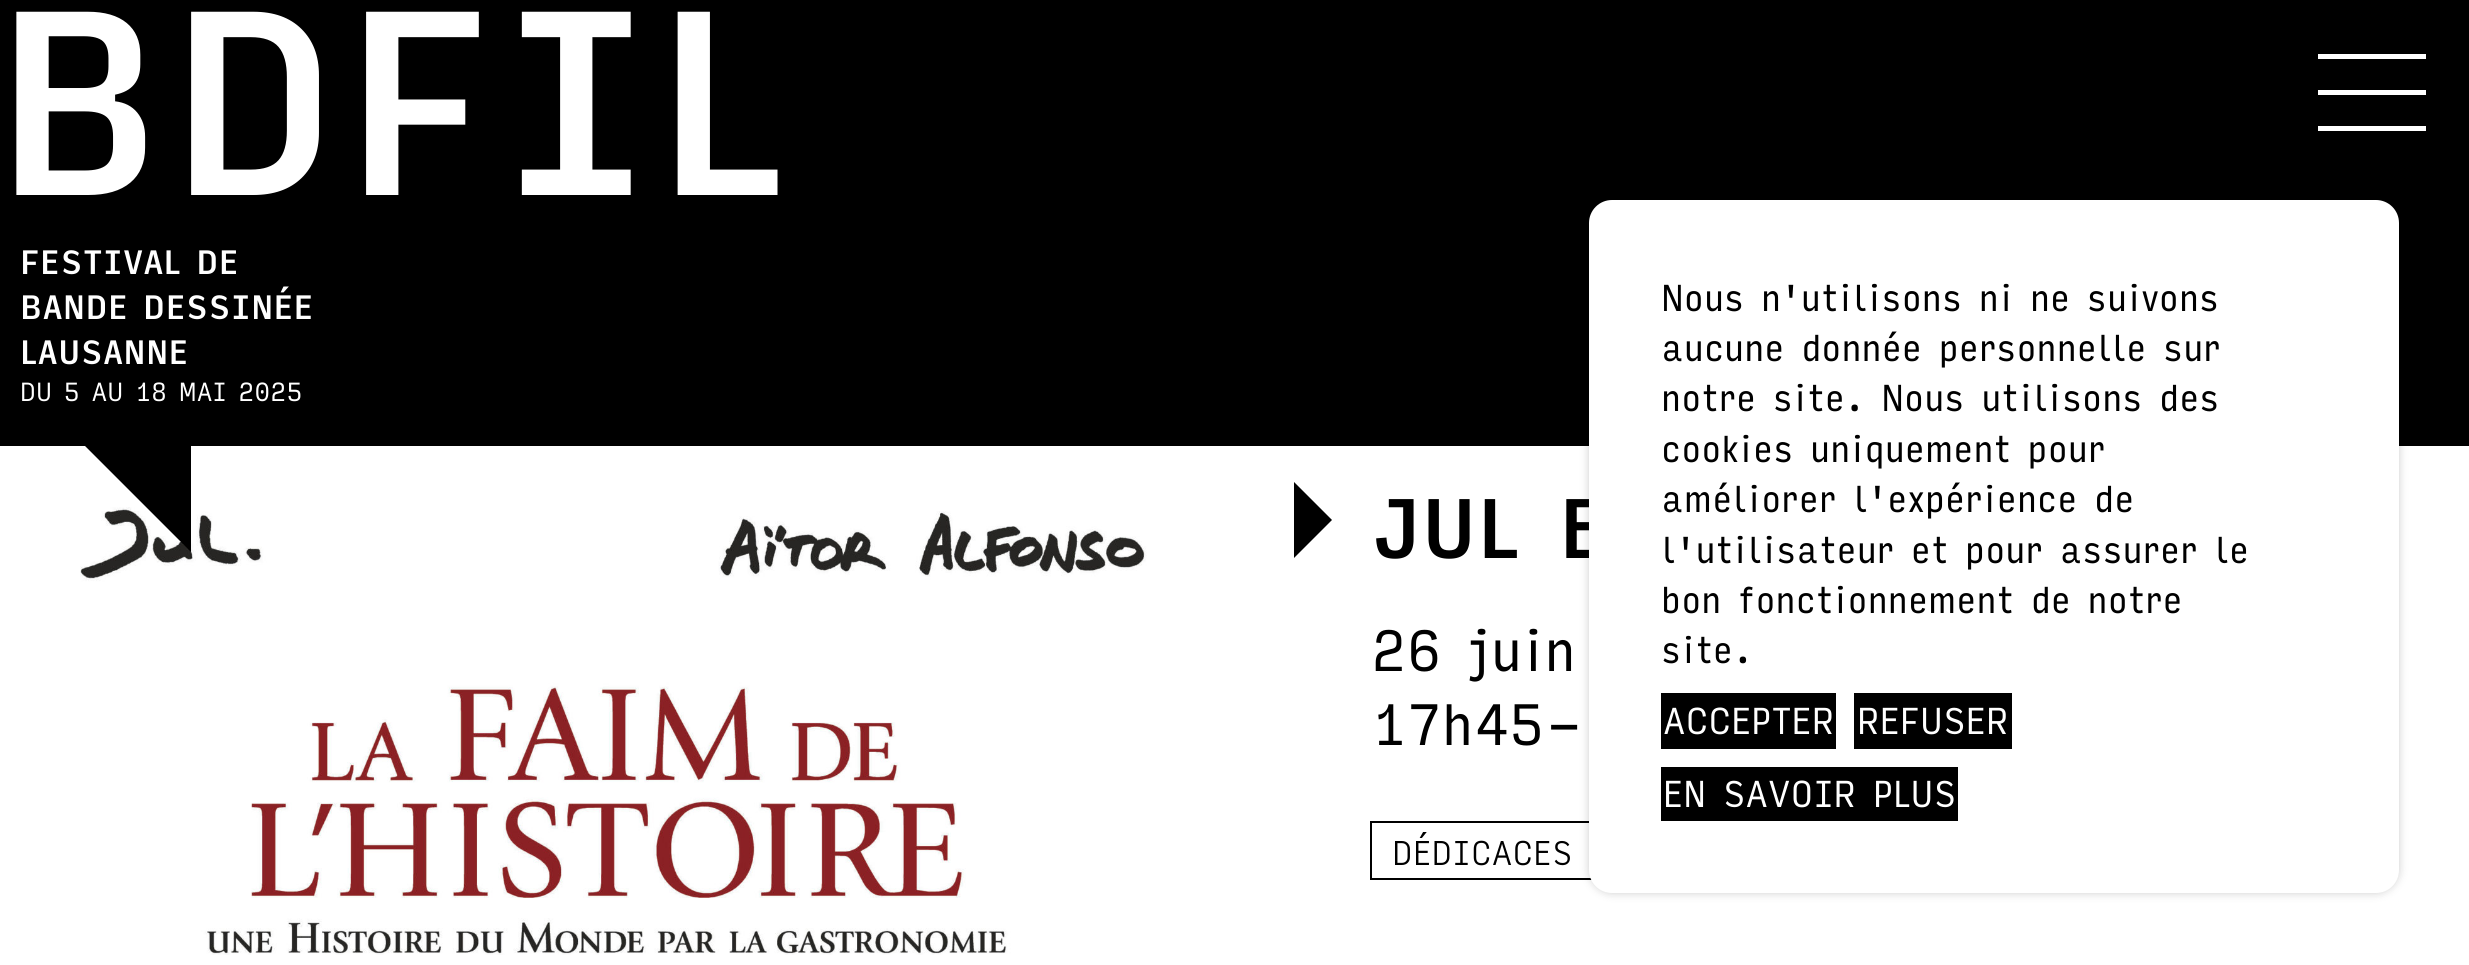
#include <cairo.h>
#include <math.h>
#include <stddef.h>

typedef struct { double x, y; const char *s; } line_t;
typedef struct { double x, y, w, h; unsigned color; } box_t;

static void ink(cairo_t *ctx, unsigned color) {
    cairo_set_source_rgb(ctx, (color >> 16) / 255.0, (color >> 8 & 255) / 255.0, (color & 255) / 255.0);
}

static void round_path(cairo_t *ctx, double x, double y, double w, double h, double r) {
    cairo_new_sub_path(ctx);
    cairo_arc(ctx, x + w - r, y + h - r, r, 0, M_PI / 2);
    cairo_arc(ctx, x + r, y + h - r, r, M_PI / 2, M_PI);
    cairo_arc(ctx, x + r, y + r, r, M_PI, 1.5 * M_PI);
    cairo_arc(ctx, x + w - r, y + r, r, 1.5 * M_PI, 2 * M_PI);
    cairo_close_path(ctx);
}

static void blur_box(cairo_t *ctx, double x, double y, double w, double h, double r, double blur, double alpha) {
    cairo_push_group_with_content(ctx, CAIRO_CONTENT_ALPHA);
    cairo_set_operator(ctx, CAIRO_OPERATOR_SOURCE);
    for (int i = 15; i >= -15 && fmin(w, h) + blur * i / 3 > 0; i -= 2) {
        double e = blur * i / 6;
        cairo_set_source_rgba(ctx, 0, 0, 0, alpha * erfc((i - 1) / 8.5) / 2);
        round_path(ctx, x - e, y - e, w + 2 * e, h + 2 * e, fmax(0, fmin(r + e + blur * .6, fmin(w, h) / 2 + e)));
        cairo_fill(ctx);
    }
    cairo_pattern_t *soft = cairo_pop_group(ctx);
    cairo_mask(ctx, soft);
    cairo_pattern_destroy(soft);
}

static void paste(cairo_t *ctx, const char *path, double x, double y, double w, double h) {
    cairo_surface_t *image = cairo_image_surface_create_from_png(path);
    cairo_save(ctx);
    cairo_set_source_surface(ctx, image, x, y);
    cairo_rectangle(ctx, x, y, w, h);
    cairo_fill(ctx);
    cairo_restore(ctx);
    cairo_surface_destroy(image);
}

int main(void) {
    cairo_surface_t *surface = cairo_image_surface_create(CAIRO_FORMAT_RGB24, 2469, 965);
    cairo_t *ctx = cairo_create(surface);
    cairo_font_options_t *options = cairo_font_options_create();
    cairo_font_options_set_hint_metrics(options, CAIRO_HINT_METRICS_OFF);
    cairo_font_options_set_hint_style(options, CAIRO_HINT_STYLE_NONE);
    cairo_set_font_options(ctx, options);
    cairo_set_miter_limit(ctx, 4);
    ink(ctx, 0xFFFFFF);
    cairo_paint(ctx);
    ink(ctx, 0x000000);
    cairo_rectangle(ctx, 0, 0, 2469, 446);
    cairo_fill(ctx);
    cairo_select_font_face(ctx, "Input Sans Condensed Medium", CAIRO_FONT_SLANT_NORMAL, CAIRO_FONT_WEIGHT_NORMAL);
    cairo_set_font_size(ctx, 252);
    ink(ctx, 0xFFFFFF);
    cairo_move_to(ctx, -7, 195);
    cairo_show_text(ctx, "BDFIL");
    paste(ctx, "media/1.png", 80, 507, 1067, 448);
    ink(ctx, 0x000000);
    cairo_new_path(ctx);
    cairo_move_to(ctx, 191, 552);
    cairo_line_to(ctx, 64, 425);
    cairo_line_to(ctx, 191, 425);
    cairo_close_path(ctx);
    cairo_fill(ctx);
    cairo_set_font_size(ctx, 32.5);
    ink(ctx, 0xFFFFFF);
    {
        static const line_t items[] = {
            {20, 274, "FESTIVAL DE"},
            {20, 319, "BANDE DESSINÉE"},
            {20, 364, "LAUSANNE"},
        };
        for (size_t i = 0; i < sizeof items / sizeof *items; i++) {
            cairo_move_to(ctx, items[i].x, items[i].y);
            cairo_show_text(ctx, items[i].s);
        }
    }
    cairo_select_font_face(ctx, "Input Sans Condensed", CAIRO_FONT_SLANT_NORMAL, CAIRO_FONT_WEIGHT_NORMAL);
    cairo_set_font_size(ctx, 25.25);
    cairo_move_to(ctx, 20, 401);
    cairo_show_text(ctx, "DU 5 AU 18 MAI 2025");
    {
        static const box_t items[] = {
            {2318, 54, 108, 5, 0xFFFFFF},
            {2318, 90, 108, 5, 0xFFFFFF},
            {2318, 126, 108, 5, 0xFFFFFF},
        };
        for (size_t i = 0; i < sizeof items / sizeof *items; i++) {
            ink(ctx, items[i].color);
            cairo_rectangle(ctx, items[i].x, items[i].y, items[i].w, items[i].h);
            cairo_fill(ctx);
        }
    }
    ink(ctx, 0x000000);
    cairo_new_path(ctx);
    cairo_move_to(ctx, 1294, 558);
    cairo_line_to(ctx, 1294, 482);
    cairo_line_to(ctx, 1332, 520);
    cairo_close_path(ctx);
    cairo_fill(ctx);
    cairo_select_font_face(ctx, "Input Sans Condensed Medium", CAIRO_FONT_SLANT_NORMAL, CAIRO_FONT_WEIGHT_NORMAL);
    cairo_set_font_size(ctx, 81);
    cairo_move_to(ctx, 1371, 558);
    cairo_show_text(ctx, "JUL E");
    cairo_select_font_face(ctx, "Input Sans Condensed", CAIRO_FONT_SLANT_NORMAL, CAIRO_FONT_WEIGHT_NORMAL);
    cairo_set_font_size(ctx, 56);
    cairo_move_to(ctx, 1371, 671);
    cairo_show_text(ctx, "26 juin");
    cairo_move_to(ctx, 1371, 745);
    cairo_show_text(ctx, "17h45-");
    {
        static const box_t items[] = {
            {1370, 821, 225, 2, 0x000000},
            {1370, 878, 225, 2, 0x000000},
            {1370, 821, 2, 59, 0x000000},
        };
        for (size_t i = 0; i < sizeof items / sizeof *items; i++) {
            ink(ctx, items[i].color);
            cairo_rectangle(ctx, items[i].x, items[i].y, items[i].w, items[i].h);
            cairo_fill(ctx);
        }
    }
    cairo_select_font_face(ctx, "Input Sans Condensed Light", CAIRO_FONT_SLANT_NORMAL, CAIRO_FONT_WEIGHT_NORMAL);
    cairo_set_font_size(ctx, 33);
    cairo_move_to(ctx, 1392, 865);
    cairo_show_text(ctx, "DÉDICACES");
    ink(ctx, 0x000000);
    blur_box(ctx, 1589, 200, 810, 693, 23, 4.5, 0.2);
    ink(ctx, 0xFFFFFF);
    round_path(ctx, 1589, 200, 810, 693, 23);
    cairo_fill(ctx);
    cairo_select_font_face(ctx, "Input Sans Condensed", CAIRO_FONT_SLANT_NORMAL, CAIRO_FONT_WEIGHT_NORMAL);
    cairo_set_font_size(ctx, 36);
    ink(ctx, 0x000000);
    {
        static const line_t items[] = {
            {1661, 311, "Nous n'utilisons ni ne suivons"},
            {1661, 361, "aucune donnée personnelle sur"},
            {1661, 411, "notre site. Nous utilisons des"},
            {1661, 462, "cookies uniquement pour"},
            {1661, 512, "améliorer l'expérience de"},
            {1661, 563, "l'utilisateur et pour assurer le"},
            {1661, 613, "bon fonctionnement de notre"},
            {1661, 663, "site."},
        };
        for (size_t i = 0; i < sizeof items / sizeof *items; i++) {
            cairo_move_to(ctx, items[i].x, items[i].y);
            cairo_show_text(ctx, items[i].s);
        }
    }
    cairo_rectangle(ctx, 1661, 693, 175, 56);
    cairo_fill(ctx);
    ink(ctx, 0xFFFFFF);
    cairo_move_to(ctx, 1663, 734);
    cairo_show_text(ctx, "ACCEPTER");
    ink(ctx, 0x000000);
    cairo_rectangle(ctx, 1854, 693, 158, 56);
    cairo_fill(ctx);
    ink(ctx, 0xFFFFFF);
    cairo_move_to(ctx, 1857, 734);
    cairo_show_text(ctx, "REFUSER");
    ink(ctx, 0x000000);
    cairo_rectangle(ctx, 1661, 767, 297, 54);
    cairo_fill(ctx);
    ink(ctx, 0xFFFFFF);
    cairo_move_to(ctx, 1663, 807);
    cairo_show_text(ctx, "EN SAVOIR PLUS");
    cairo_surface_write_to_png(surface, "image.png");
    cairo_font_options_destroy(options);
    cairo_destroy(ctx);
    cairo_surface_destroy(surface);
    return 0;
}
